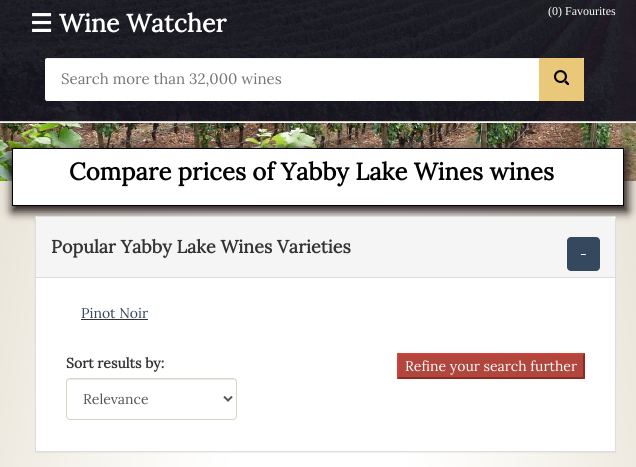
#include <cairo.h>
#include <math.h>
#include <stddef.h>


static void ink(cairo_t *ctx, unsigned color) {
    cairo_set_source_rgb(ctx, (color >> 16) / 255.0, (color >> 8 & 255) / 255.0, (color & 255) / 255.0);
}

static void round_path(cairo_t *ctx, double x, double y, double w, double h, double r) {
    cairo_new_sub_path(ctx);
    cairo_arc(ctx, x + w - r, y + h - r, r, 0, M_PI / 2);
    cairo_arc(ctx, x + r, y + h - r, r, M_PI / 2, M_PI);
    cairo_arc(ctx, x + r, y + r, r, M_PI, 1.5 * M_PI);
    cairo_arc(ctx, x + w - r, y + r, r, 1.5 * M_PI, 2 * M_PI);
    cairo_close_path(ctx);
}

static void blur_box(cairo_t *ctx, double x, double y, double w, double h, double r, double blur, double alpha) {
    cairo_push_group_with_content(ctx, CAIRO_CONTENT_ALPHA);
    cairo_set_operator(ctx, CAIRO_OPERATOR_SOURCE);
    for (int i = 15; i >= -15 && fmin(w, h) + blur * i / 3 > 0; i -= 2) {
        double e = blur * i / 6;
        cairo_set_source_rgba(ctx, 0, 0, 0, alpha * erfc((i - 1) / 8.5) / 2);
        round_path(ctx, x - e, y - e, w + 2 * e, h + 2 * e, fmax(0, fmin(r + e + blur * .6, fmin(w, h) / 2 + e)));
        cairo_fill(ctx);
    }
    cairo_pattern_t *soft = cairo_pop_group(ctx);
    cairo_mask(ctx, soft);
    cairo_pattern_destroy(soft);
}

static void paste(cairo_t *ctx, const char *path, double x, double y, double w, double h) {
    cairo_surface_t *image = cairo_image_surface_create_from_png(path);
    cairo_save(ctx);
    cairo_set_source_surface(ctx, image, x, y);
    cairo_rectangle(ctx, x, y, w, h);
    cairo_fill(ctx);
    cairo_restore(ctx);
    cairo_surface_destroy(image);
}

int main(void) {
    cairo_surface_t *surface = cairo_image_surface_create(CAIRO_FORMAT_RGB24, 636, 467);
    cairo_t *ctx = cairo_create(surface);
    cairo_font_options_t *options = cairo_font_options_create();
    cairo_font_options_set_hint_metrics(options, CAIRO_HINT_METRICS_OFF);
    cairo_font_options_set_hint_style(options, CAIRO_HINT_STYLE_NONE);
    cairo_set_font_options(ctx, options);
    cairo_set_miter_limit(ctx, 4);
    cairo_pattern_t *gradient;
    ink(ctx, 0xFFFFFF);
    cairo_paint(ctx);
    gradient = cairo_pattern_create_radial(0, 0, 0, 0, 0, 1);
    cairo_pattern_set_matrix(gradient, &(cairo_matrix_t){1.0 / 450, 0, 0, 1.0 / 1925, -1.0 * 318 / 450, -1.0 * 1361 / 1925});
    cairo_pattern_add_color_stop_rgba(gradient, 0.5, 1, 1, 1, 1);
    cairo_pattern_add_color_stop_rgba(gradient, 1, 0.906, 0.882, 0.827, 1);
    cairo_set_source(ctx, gradient);
    cairo_pattern_destroy(gradient);
    cairo_rectangle(ctx, 0, 181, 636, 286);
    cairo_fill(ctx);
    paste(ctx, "media/1.png", 0, 0, 636, 181);
    cairo_set_source_rgba(ctx, 0.082, 0.067, 0.122, 0.9);
    cairo_rectangle(ctx, 0, 0, 636, 121);
    cairo_fill(ctx);
    ink(ctx, 0xD0C7C7);
    cairo_rectangle(ctx, 0, 121, 636, 1);
    cairo_fill(ctx);
    cairo_select_font_face(ctx, "DejaVu Sans", CAIRO_FONT_SLANT_NORMAL, CAIRO_FONT_WEIGHT_BOLD);
    cairo_set_font_size(ctx, 25);
    ink(ctx, 0xFFFFFF);
    cairo_move_to(ctx, 30, 32);
    cairo_show_text(ctx, "☰");
    cairo_select_font_face(ctx, "Lora", CAIRO_FONT_SLANT_NORMAL, CAIRO_FONT_WEIGHT_BOLD);
    cairo_move_to(ctx, 59, 32);
    cairo_show_text(ctx, "Wine Watcher");
    cairo_new_path(ctx);
    cairo_move_to(ctx, 47, 58);
    cairo_line_to(ctx, 584, 58);
    cairo_line_to(ctx, 584, 101);
    cairo_line_to(ctx, 47, 101);
    cairo_curve_to(ctx, 46, 101, 45, 100, 45, 99);
    cairo_line_to(ctx, 45, 60);
    cairo_curve_to(ctx, 45, 59, 46, 58, 47, 58);
    cairo_close_path(ctx);
    cairo_fill(ctx);
    cairo_set_source_rgba(ctx, 0, 0, 0, 0.07);
    cairo_new_path(ctx);
    cairo_move_to(ctx, 47, 59);
    cairo_line_to(ctx, 539, 59);
    cairo_line_to(ctx, 539, 58);
    cairo_line_to(ctx, 47, 58);
    cairo_line_to(ctx, 45, 59);
    cairo_line_to(ctx, 45, 61);
    cairo_curve_to(ctx, 45, 60, 46, 59, 47, 59);
    cairo_close_path(ctx);
    cairo_fill(ctx);
    cairo_select_font_face(ctx, "Lora", CAIRO_FONT_SLANT_NORMAL, CAIRO_FONT_WEIGHT_NORMAL);
    cairo_set_font_size(ctx, 15);
    ink(ctx, 0x757575);
    cairo_move_to(ctx, 61, 84);
    cairo_show_text(ctx, "Search more than 32,000 wines");
    ink(ctx, 0xE9C879);
    cairo_new_path(ctx);
    cairo_move_to(ctx, 539.5, 58.5);
    cairo_line_to(ctx, 582, 58.5);
    cairo_curve_to(ctx, 583, 58.5, 583.5, 59, 583.5, 60);
    cairo_line_to(ctx, 583.5, 99);
    cairo_curve_to(ctx, 583.5, 100, 583, 100.5, 582, 100.5);
    cairo_line_to(ctx, 539.5, 100.5);
    cairo_close_path(ctx);
    cairo_fill_preserve(ctx);
    cairo_set_line_width(ctx, 1);
    cairo_stroke(ctx);
    paste(ctx, "media/2.png", 554, 70, 15, 15);
    cairo_select_font_face(ctx, "Liberation Serif", CAIRO_FONT_SLANT_NORMAL, CAIRO_FONT_WEIGHT_NORMAL);
    cairo_set_font_size(ctx, 12);
    ink(ctx, 0xFFFFFF);
    cairo_move_to(ctx, 548, 15);
    cairo_show_text(ctx, "(0) Favourites");
    ink(ctx, 0xF7F4F4);
    cairo_rectangle(ctx, 0, 122, 636, 1);
    cairo_fill(ctx);
    ink(ctx, 0x241A1A);
    blur_box(ctx, 12, 150, 616, 62, 0, 5, 1);
    ink(ctx, 0xFFFFFF);
    cairo_rectangle(ctx, 12.5, 148.5, 611, 57);
    cairo_fill_preserve(ctx);
    ink(ctx, 0x000000);
    cairo_stroke(ctx);
    cairo_select_font_face(ctx, "Lora", CAIRO_FONT_SLANT_NORMAL, CAIRO_FONT_WEIGHT_BOLD);
    cairo_set_font_size(ctx, 24);
    cairo_move_to(ctx, 69, 180);
    cairo_show_text(ctx, "Compare prices of Yabby Lake Wines wines");
    ink(ctx, 0x000000);
    blur_box(ctx, 35, 217, 581, 236, 0, 0.5, 0.05);
    ink(ctx, 0xFFFFFF);
    cairo_rectangle(ctx, 35.5, 216.5, 580, 235);
    cairo_fill_preserve(ctx);
    ink(ctx, 0xDDDDDD);
    cairo_stroke(ctx);
    ink(ctx, 0xF5F5F5);
    cairo_new_path(ctx);
    cairo_move_to(ctx, 39, 217);
    cairo_line_to(ctx, 612, 217);
    cairo_curve_to(ctx, 613.5, 217, 615, 218.5, 615, 220);
    cairo_line_to(ctx, 615, 278);
    cairo_line_to(ctx, 36, 278);
    cairo_line_to(ctx, 36, 220);
    cairo_curve_to(ctx, 36, 218.5, 37.5, 217, 39, 217);
    cairo_close_path(ctx);
    cairo_fill(ctx);
    ink(ctx, 0xDDDDDD);
    cairo_rectangle(ctx, 36, 277, 579, 1);
    cairo_fill(ctx);
    cairo_set_font_size(ctx, 18);
    ink(ctx, 0x333333);
    cairo_move_to(ctx, 51, 253);
    cairo_show_text(ctx, "Popular Yabby Lake Wines Varieties");
    ink(ctx, 0x34495E);
    round_path(ctx, 567.5, 237.5, 32, 33, 3.5);
    cairo_fill_preserve(ctx);
    cairo_stroke(ctx);
    cairo_select_font_face(ctx, "Lora", CAIRO_FONT_SLANT_NORMAL, CAIRO_FONT_WEIGHT_NORMAL);
    cairo_set_font_size(ctx, 14);
    ink(ctx, 0xFFFFFF);
    cairo_move_to(ctx, 580, 259);
    cairo_show_text(ctx, "-");
    ink(ctx, 0x34495E);
    cairo_move_to(ctx, 81, 318);
    cairo_show_text(ctx, "Pinot Noir");
    ink(ctx, 0x333333);
    cairo_rectangle(ctx, 81, 319, 67, 1);
    cairo_fill(ctx);
    cairo_select_font_face(ctx, "Lora", CAIRO_FONT_SLANT_NORMAL, CAIRO_FONT_WEIGHT_BOLD);
    cairo_move_to(ctx, 66, 368);
    cairo_show_text(ctx, "Sort results by:");
    ink(ctx, 0xECECEC);
    cairo_new_path(ctx);
    cairo_move_to(ctx, 70, 380);
    cairo_line_to(ctx, 233, 380);
    cairo_curve_to(ctx, 235, 380, 236, 381, 236, 383);
    cairo_line_to(ctx, 236, 382);
    cairo_curve_to(ctx, 236, 380, 235, 379, 233, 379);
    cairo_line_to(ctx, 70, 379);
    cairo_curve_to(ctx, 68, 379, 67, 380, 67, 382);
    cairo_line_to(ctx, 67, 383);
    cairo_curve_to(ctx, 67, 381, 68, 380, 70, 380);
    cairo_close_path(ctx);
    cairo_fill(ctx);
    round_path(ctx, 66.5, 378.5, 170, 41, 3.5);
    ink(ctx, 0xDCD3C4);
    cairo_stroke(ctx);
    cairo_new_path(ctx);
    cairo_move_to(ctx, 224, 396.5);
    cairo_line_to(ctx, 228, 400.5);
    cairo_line_to(ctx, 232, 396.5);
    ink(ctx, 0x555555);
    cairo_set_line_width(ctx, 2);
    cairo_stroke(ctx);
    cairo_select_font_face(ctx, "Lora", CAIRO_FONT_SLANT_NORMAL, CAIRO_FONT_WEIGHT_NORMAL);
    cairo_move_to(ctx, 83, 404);
    cairo_show_text(ctx, "Relevance");
    ink(ctx, 0xB1463C);
    cairo_rectangle(ctx, 397, 353, 188, 26);
    cairo_fill(ctx);
    ink(ctx, 0xD43F3A);
    cairo_new_path(ctx);
    cairo_move_to(ctx, 397, 353);
    cairo_line_to(ctx, 585, 353);
    cairo_line_to(ctx, 583, 355);
    cairo_line_to(ctx, 399, 355);
    cairo_close_path(ctx);
    cairo_fill(ctx);
    ink(ctx, 0x8D2A27);
    cairo_new_path(ctx);
    cairo_move_to(ctx, 585, 353);
    cairo_line_to(ctx, 585, 379);
    cairo_line_to(ctx, 583, 377);
    cairo_line_to(ctx, 583, 355);
    cairo_close_path(ctx);
    cairo_fill(ctx);
    cairo_new_path(ctx);
    cairo_move_to(ctx, 585, 379);
    cairo_line_to(ctx, 397, 379);
    cairo_line_to(ctx, 399, 377);
    cairo_line_to(ctx, 583, 377);
    cairo_close_path(ctx);
    cairo_fill(ctx);
    ink(ctx, 0xD43F3A);
    cairo_new_path(ctx);
    cairo_move_to(ctx, 397, 379);
    cairo_line_to(ctx, 397, 353);
    cairo_line_to(ctx, 399, 355);
    cairo_line_to(ctx, 399, 377);
    cairo_close_path(ctx);
    cairo_fill(ctx);
    ink(ctx, 0xFFFFFF);
    cairo_move_to(ctx, 405, 371);
    cairo_show_text(ctx, "Refine your search further");
    cairo_surface_write_to_png(surface, "image.png");
    cairo_font_options_destroy(options);
    cairo_destroy(ctx);
    cairo_surface_destroy(surface);
    return 0;
}
